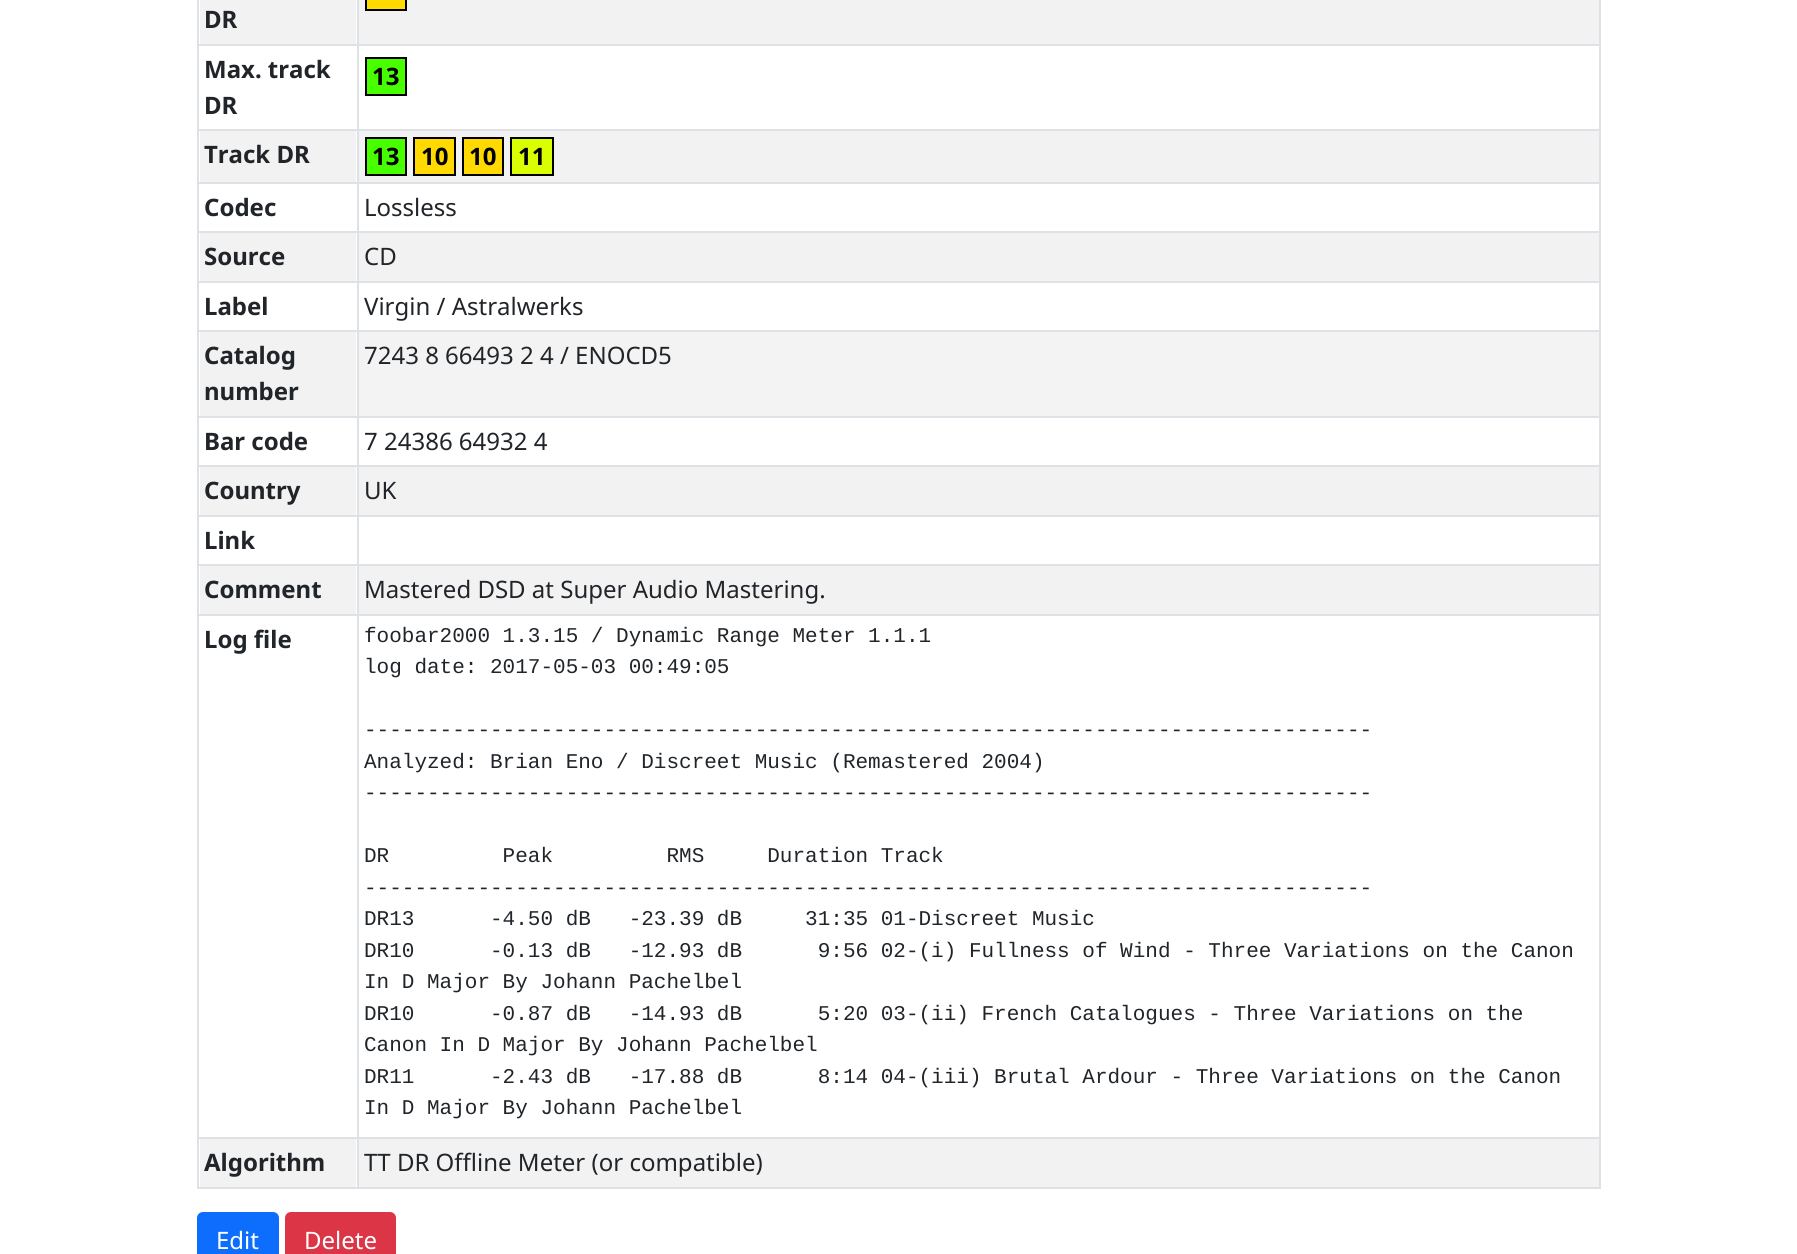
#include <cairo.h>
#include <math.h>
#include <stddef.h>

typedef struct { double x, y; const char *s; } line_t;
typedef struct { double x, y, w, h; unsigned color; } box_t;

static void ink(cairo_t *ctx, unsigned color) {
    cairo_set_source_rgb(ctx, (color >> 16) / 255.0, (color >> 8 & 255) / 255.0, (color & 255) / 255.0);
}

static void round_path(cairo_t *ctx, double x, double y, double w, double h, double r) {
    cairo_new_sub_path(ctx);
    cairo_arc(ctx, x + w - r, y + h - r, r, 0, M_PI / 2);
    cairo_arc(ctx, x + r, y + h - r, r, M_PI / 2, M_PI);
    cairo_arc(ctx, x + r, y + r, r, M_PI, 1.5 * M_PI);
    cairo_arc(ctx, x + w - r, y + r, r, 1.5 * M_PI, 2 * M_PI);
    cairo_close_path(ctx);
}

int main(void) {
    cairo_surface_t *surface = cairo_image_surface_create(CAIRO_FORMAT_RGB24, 1797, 1254);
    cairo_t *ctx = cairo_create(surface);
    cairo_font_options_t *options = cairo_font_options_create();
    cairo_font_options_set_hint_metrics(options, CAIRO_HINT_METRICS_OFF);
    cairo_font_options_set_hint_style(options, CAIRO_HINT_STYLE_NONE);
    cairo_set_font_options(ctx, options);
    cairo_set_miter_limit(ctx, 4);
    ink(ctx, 0xFFFFFF);
    cairo_paint(ctx);
    ink(ctx, 0xF2F2F2);
    cairo_rectangle(ctx, 200, 0, 156, 44);
    cairo_fill(ctx);
    cairo_select_font_face(ctx, "Noto Sans", CAIRO_FONT_SLANT_NORMAL, CAIRO_FONT_WEIGHT_BOLD);
    cairo_set_font_size(ctx, 24);
    ink(ctx, 0x212529);
    cairo_move_to(ctx, 204, 28);
    cairo_show_text(ctx, "DR");
    ink(ctx, 0xF2F2F2);
    cairo_rectangle(ctx, 359, 0, 1240, 44);
    cairo_fill(ctx);
    ink(ctx, 0xFFD900);
    cairo_rectangle(ctx, 366, -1, 40, 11);
    cairo_fill_preserve(ctx);
    ink(ctx, 0x000000);
    cairo_stroke(ctx);
    ink(ctx, 0xDEE2E6);
    cairo_rectangle(ctx, 197, 44, 1404, 2);
    cairo_fill(ctx);
    ink(ctx, 0x212529);
    cairo_move_to(ctx, 204, 78);
    cairo_show_text(ctx, "Max. track");
    cairo_move_to(ctx, 204, 114);
    cairo_show_text(ctx, "DR");
    ink(ctx, 0x48FF00);
    cairo_rectangle(ctx, 366, 58, 40, 37);
    cairo_fill_preserve(ctx);
    ink(ctx, 0x000000);
    cairo_stroke(ctx);
    cairo_move_to(ctx, 372, 85);
    cairo_show_text(ctx, "13");
    ink(ctx, 0xDEE2E6);
    cairo_rectangle(ctx, 197, 129, 1404, 2);
    cairo_fill(ctx);
    ink(ctx, 0xF2F2F2);
    cairo_rectangle(ctx, 200, 131, 156, 51);
    cairo_fill(ctx);
    ink(ctx, 0x212529);
    cairo_move_to(ctx, 204, 163);
    cairo_show_text(ctx, "Track DR");
    ink(ctx, 0xF2F2F2);
    cairo_rectangle(ctx, 359, 131, 1240, 51);
    cairo_fill(ctx);
    ink(ctx, 0x48FF00);
    cairo_rectangle(ctx, 366, 138, 40, 37);
    cairo_fill_preserve(ctx);
    ink(ctx, 0x000000);
    cairo_stroke(ctx);
    cairo_move_to(ctx, 372, 165);
    cairo_show_text(ctx, "13");
    ink(ctx, 0xFFD900);
    cairo_rectangle(ctx, 414, 138, 41, 37);
    cairo_fill_preserve(ctx);
    ink(ctx, 0x000000);
    cairo_stroke(ctx);
    cairo_move_to(ctx, 421, 165);
    cairo_show_text(ctx, "10");
    ink(ctx, 0xFFD900);
    cairo_rectangle(ctx, 463, 138, 40, 37);
    cairo_fill_preserve(ctx);
    ink(ctx, 0x000000);
    cairo_stroke(ctx);
    cairo_move_to(ctx, 469, 165);
    cairo_show_text(ctx, "10");
    ink(ctx, 0xD9FF00);
    cairo_rectangle(ctx, 511, 138, 42, 37);
    cairo_fill_preserve(ctx);
    ink(ctx, 0x000000);
    cairo_stroke(ctx);
    cairo_move_to(ctx, 518, 165);
    cairo_show_text(ctx, "11");
    ink(ctx, 0xDEE2E6);
    cairo_rectangle(ctx, 197, 182, 1404, 2);
    cairo_fill(ctx);
    ink(ctx, 0x212529);
    cairo_move_to(ctx, 204, 216);
    cairo_show_text(ctx, "Codec");
    cairo_select_font_face(ctx, "Noto Sans", CAIRO_FONT_SLANT_NORMAL, CAIRO_FONT_WEIGHT_NORMAL);
    cairo_move_to(ctx, 364, 216);
    cairo_show_text(ctx, "Lossless");
    ink(ctx, 0xDEE2E6);
    cairo_rectangle(ctx, 197, 231, 1404, 2);
    cairo_fill(ctx);
    ink(ctx, 0xF2F2F2);
    cairo_rectangle(ctx, 200, 233, 156, 48);
    cairo_fill(ctx);
    cairo_select_font_face(ctx, "Noto Sans", CAIRO_FONT_SLANT_NORMAL, CAIRO_FONT_WEIGHT_BOLD);
    ink(ctx, 0x212529);
    cairo_move_to(ctx, 204, 265);
    cairo_show_text(ctx, "Source");
    ink(ctx, 0xF2F2F2);
    cairo_rectangle(ctx, 359, 233, 1240, 48);
    cairo_fill(ctx);
    cairo_select_font_face(ctx, "Noto Sans", CAIRO_FONT_SLANT_NORMAL, CAIRO_FONT_WEIGHT_NORMAL);
    ink(ctx, 0x212529);
    cairo_move_to(ctx, 364, 265);
    cairo_show_text(ctx, "CD");
    ink(ctx, 0xDEE2E6);
    cairo_rectangle(ctx, 197, 281, 1404, 2);
    cairo_fill(ctx);
    cairo_select_font_face(ctx, "Noto Sans", CAIRO_FONT_SLANT_NORMAL, CAIRO_FONT_WEIGHT_BOLD);
    ink(ctx, 0x212529);
    cairo_move_to(ctx, 204, 315);
    cairo_show_text(ctx, "Label");
    cairo_select_font_face(ctx, "Noto Sans", CAIRO_FONT_SLANT_NORMAL, CAIRO_FONT_WEIGHT_NORMAL);
    cairo_move_to(ctx, 364, 315);
    cairo_show_text(ctx, "Virgin / Astralwerks");
    ink(ctx, 0xDEE2E6);
    cairo_rectangle(ctx, 197, 330, 1404, 2);
    cairo_fill(ctx);
    ink(ctx, 0xF2F2F2);
    cairo_rectangle(ctx, 200, 332, 156, 84);
    cairo_fill(ctx);
    cairo_select_font_face(ctx, "Noto Sans", CAIRO_FONT_SLANT_NORMAL, CAIRO_FONT_WEIGHT_BOLD);
    ink(ctx, 0x212529);
    cairo_move_to(ctx, 204, 364);
    cairo_show_text(ctx, "Catalog");
    cairo_move_to(ctx, 204, 400);
    cairo_show_text(ctx, "number");
    ink(ctx, 0xF3F3F3);
    cairo_rectangle(ctx, 359, 332, 1240, 84);
    cairo_fill(ctx);
    cairo_select_font_face(ctx, "Noto Sans", CAIRO_FONT_SLANT_NORMAL, CAIRO_FONT_WEIGHT_NORMAL);
    ink(ctx, 0x212529);
    cairo_move_to(ctx, 364, 364);
    cairo_show_text(ctx, "7243 8 66493 2 4 / ENOCD5");
    ink(ctx, 0xDEE2E6);
    cairo_rectangle(ctx, 197, 416, 1404, 2);
    cairo_fill(ctx);
    cairo_select_font_face(ctx, "Noto Sans", CAIRO_FONT_SLANT_NORMAL, CAIRO_FONT_WEIGHT_BOLD);
    ink(ctx, 0x212529);
    cairo_move_to(ctx, 204, 450);
    cairo_show_text(ctx, "Bar code");
    cairo_select_font_face(ctx, "Noto Sans", CAIRO_FONT_SLANT_NORMAL, CAIRO_FONT_WEIGHT_NORMAL);
    cairo_move_to(ctx, 364, 450);
    cairo_show_text(ctx, "7 24386 64932 4");
    ink(ctx, 0xDEE2E6);
    cairo_rectangle(ctx, 197, 465, 1404, 2);
    cairo_fill(ctx);
    ink(ctx, 0xF2F2F2);
    cairo_rectangle(ctx, 200, 467, 156, 48);
    cairo_fill(ctx);
    cairo_select_font_face(ctx, "Noto Sans", CAIRO_FONT_SLANT_NORMAL, CAIRO_FONT_WEIGHT_BOLD);
    ink(ctx, 0x212529);
    cairo_move_to(ctx, 204, 499);
    cairo_show_text(ctx, "Country");
    ink(ctx, 0xF2F2F2);
    cairo_rectangle(ctx, 359, 467, 1240, 48);
    cairo_fill(ctx);
    cairo_select_font_face(ctx, "Noto Sans", CAIRO_FONT_SLANT_NORMAL, CAIRO_FONT_WEIGHT_NORMAL);
    ink(ctx, 0x212529);
    cairo_move_to(ctx, 364, 499);
    cairo_show_text(ctx, "UK");
    ink(ctx, 0xDEE2E6);
    cairo_rectangle(ctx, 197, 515, 1404, 2);
    cairo_fill(ctx);
    cairo_select_font_face(ctx, "Noto Sans", CAIRO_FONT_SLANT_NORMAL, CAIRO_FONT_WEIGHT_BOLD);
    ink(ctx, 0x212529);
    cairo_move_to(ctx, 204, 549);
    cairo_show_text(ctx, "Link");
    ink(ctx, 0xDEE2E6);
    cairo_rectangle(ctx, 197, 564, 1404, 2);
    cairo_fill(ctx);
    ink(ctx, 0xF2F2F2);
    cairo_rectangle(ctx, 200, 566, 156, 48);
    cairo_fill(ctx);
    ink(ctx, 0x212529);
    cairo_move_to(ctx, 204, 598);
    cairo_show_text(ctx, "Comment");
    ink(ctx, 0xF2F2F2);
    cairo_rectangle(ctx, 359, 566, 1240, 48);
    cairo_fill(ctx);
    cairo_select_font_face(ctx, "Noto Sans", CAIRO_FONT_SLANT_NORMAL, CAIRO_FONT_WEIGHT_NORMAL);
    ink(ctx, 0x212529);
    cairo_move_to(ctx, 364, 598);
    cairo_show_text(ctx, "Mastered DSD at Super Audio Mastering.");
    ink(ctx, 0xDEE2E6);
    cairo_rectangle(ctx, 197, 614, 1404, 2);
    cairo_fill(ctx);
    cairo_select_font_face(ctx, "Noto Sans", CAIRO_FONT_SLANT_NORMAL, CAIRO_FONT_WEIGHT_BOLD);
    ink(ctx, 0x212529);
    cairo_move_to(ctx, 204, 648);
    cairo_show_text(ctx, "Log file");
    cairo_select_font_face(ctx, "Liberation Mono", CAIRO_FONT_SLANT_NORMAL, CAIRO_FONT_WEIGHT_NORMAL);
    cairo_set_font_size(ctx, 21);
    {
        static const line_t items[] = {
            {364, 642, "foobar2000 1.3.15 / Dynamic Range Meter 1.1.1"},
            {364, 673, "log date: 2017-05-03 00:49:05"},
            {364, 736, "--------------------------------------------------------------------------------"},
            {364, 768, "Analyzed: Brian Eno / Discreet Music (Remastered 2004)"},
            {364, 799, "--------------------------------------------------------------------------------"},
            {364, 862, "DR         Peak         RMS     Duration Track"},
            {364, 894, "--------------------------------------------------------------------------------"},
            {364, 925, "DR13      -4.50 dB   -23.39 dB     31:35 01-Discreet Music"},
            {364, 957, "DR10      -0.13 dB   -12.93 dB      9:56 02-(i) Fullness of Wind - Three Variations on the Canon"},
            {364, 988, "In D Major By Johann Pachelbel"},
            {364, 1020, "DR10      -0.87 dB   -14.93 dB      5:20 03-(ii) French Catalogues - Three Variations on the"},
            {364, 1051, "Canon In D Major By Johann Pachelbel"},
            {364, 1083, "DR11      -2.43 dB   -17.88 dB      8:14 04-(iii) Brutal Ardour - Three Variations on the Canon"},
            {364, 1114, "In D Major By Johann Pachelbel"},
        };
        for (size_t i = 0; i < sizeof items / sizeof *items; i++) {
            cairo_move_to(ctx, items[i].x, items[i].y);
            cairo_show_text(ctx, items[i].s);
        }
    }
    {
        static const box_t items[] = {
            {197, 1137, 1404, 2, 0xDEE2E6},
            {197, 1187, 1404, 2, 0xDEE2E6},
            {200, 1139, 156, 48, 0xF2F2F2},
            {197, 0, 2, 1188, 0xDEE2E6},
        };
        for (size_t i = 0; i < sizeof items / sizeof *items; i++) {
            ink(ctx, items[i].color);
            cairo_rectangle(ctx, items[i].x, items[i].y, items[i].w, items[i].h);
            cairo_fill(ctx);
        }
    }
    cairo_select_font_face(ctx, "Noto Sans", CAIRO_FONT_SLANT_NORMAL, CAIRO_FONT_WEIGHT_BOLD);
    cairo_set_font_size(ctx, 24);
    ink(ctx, 0x212529);
    cairo_move_to(ctx, 204, 1171);
    cairo_show_text(ctx, "Algorithm");
    {
        static const box_t items[] = {
            {359, 1139, 1240, 48, 0xF2F2F2},
            {1599, 0, 2, 1188, 0xDEE2E6},
            {357, 0, 2, 1188, 0xDEE2E6},
        };
        for (size_t i = 0; i < sizeof items / sizeof *items; i++) {
            ink(ctx, items[i].color);
            cairo_rectangle(ctx, items[i].x, items[i].y, items[i].w, items[i].h);
            cairo_fill(ctx);
        }
    }
    cairo_select_font_face(ctx, "Noto Sans", CAIRO_FONT_SLANT_NORMAL, CAIRO_FONT_WEIGHT_NORMAL);
    ink(ctx, 0x212529);
    cairo_move_to(ctx, 364, 1171);
    cairo_show_text(ctx, "TT DR Offline Meter (or compatible)");
    ink(ctx, 0x0D6EFD);
    round_path(ctx, 198, 1213, 80, 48, 5);
    cairo_fill_preserve(ctx);
    cairo_stroke(ctx);
    ink(ctx, 0xFFFFFF);
    cairo_move_to(ctx, 216, 1249);
    cairo_show_text(ctx, "Edit");
    ink(ctx, 0xDC3545);
    round_path(ctx, 286, 1213, 109, 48, 5);
    cairo_fill_preserve(ctx);
    cairo_stroke(ctx);
    ink(ctx, 0xFFFFFF);
    cairo_move_to(ctx, 304, 1249);
    cairo_show_text(ctx, "Delete");
    cairo_surface_write_to_png(surface, "image.png");
    cairo_font_options_destroy(options);
    cairo_destroy(ctx);
    cairo_surface_destroy(surface);
    return 0;
}
